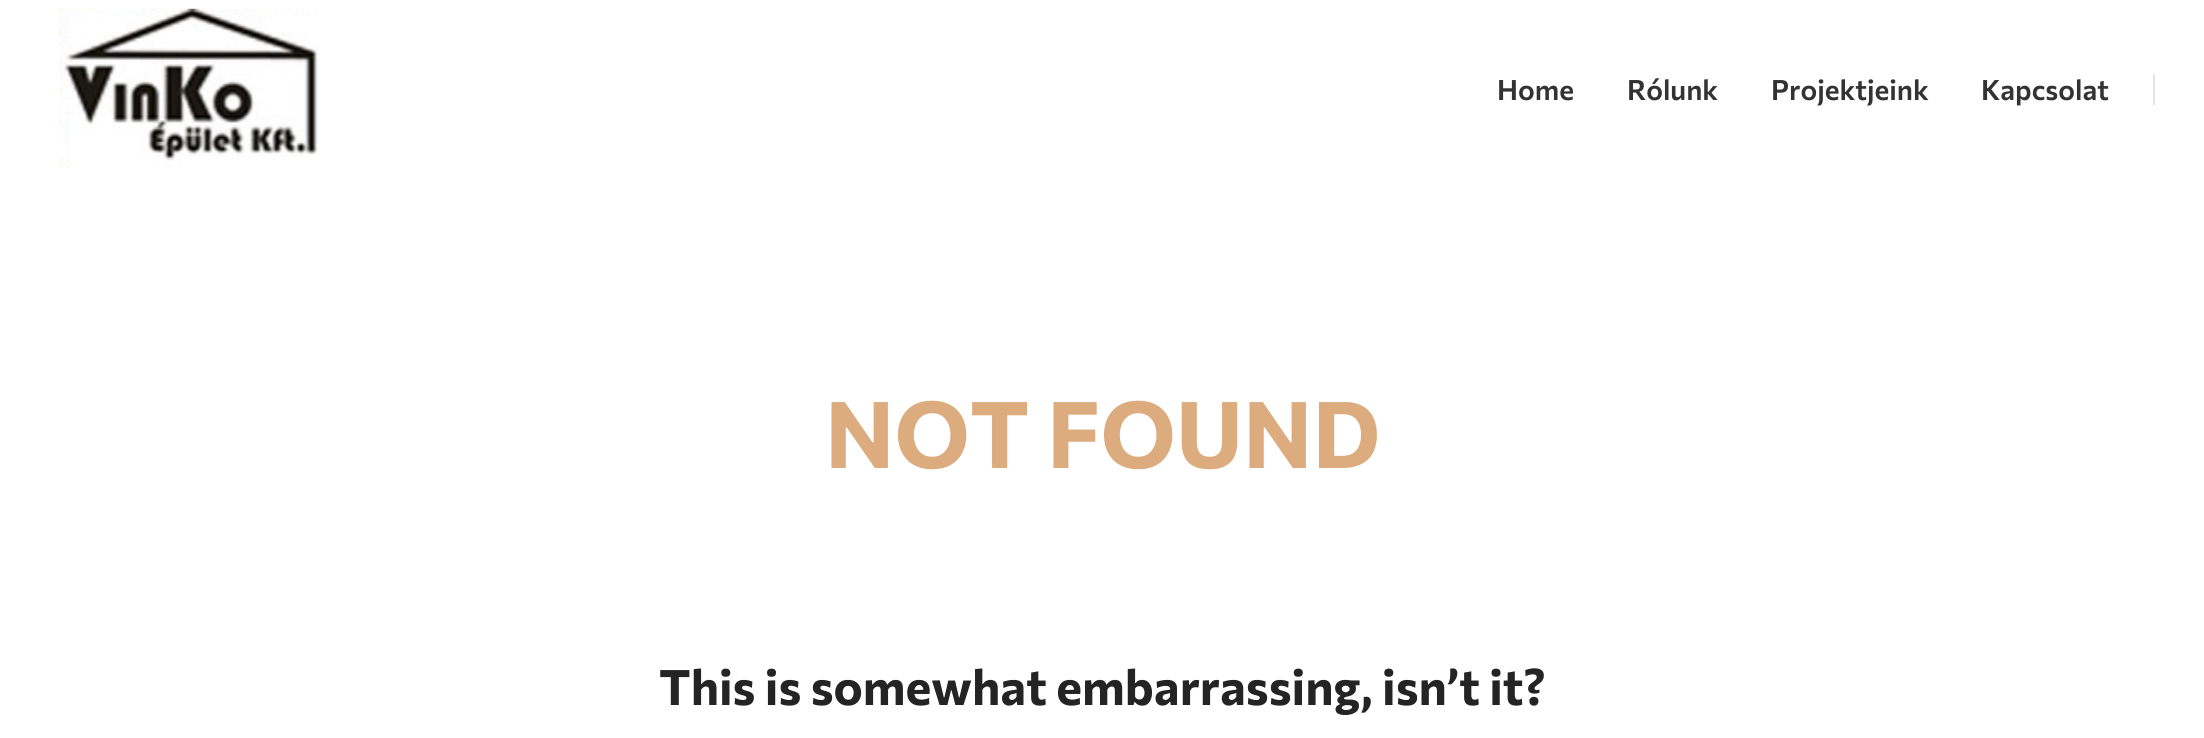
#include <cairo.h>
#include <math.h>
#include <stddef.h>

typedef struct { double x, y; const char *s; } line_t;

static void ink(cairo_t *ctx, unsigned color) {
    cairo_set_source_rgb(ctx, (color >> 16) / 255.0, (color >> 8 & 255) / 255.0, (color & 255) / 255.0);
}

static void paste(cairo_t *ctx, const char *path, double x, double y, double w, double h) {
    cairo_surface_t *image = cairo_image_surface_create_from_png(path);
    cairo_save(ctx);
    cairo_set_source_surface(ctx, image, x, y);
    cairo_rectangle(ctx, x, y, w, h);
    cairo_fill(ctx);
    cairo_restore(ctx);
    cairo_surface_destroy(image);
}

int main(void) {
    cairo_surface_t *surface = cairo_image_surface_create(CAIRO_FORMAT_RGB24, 2204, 738);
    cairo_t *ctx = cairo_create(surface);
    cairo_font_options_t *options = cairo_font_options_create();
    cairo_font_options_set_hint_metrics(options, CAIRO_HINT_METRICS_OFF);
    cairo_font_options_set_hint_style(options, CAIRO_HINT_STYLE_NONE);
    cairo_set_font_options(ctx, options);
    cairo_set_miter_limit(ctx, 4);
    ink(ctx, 0xFFFFFF);
    cairo_paint(ctx);
    paste(ctx, "media/1.png", 59, 8, 259, 160);
    cairo_select_font_face(ctx, "Commissioner SemiBold", CAIRO_FONT_SLANT_NORMAL, CAIRO_FONT_WEIGHT_NORMAL);
    cairo_set_font_size(ctx, 28);
    ink(ctx, 0x333333);
    {
        static const line_t items[] = {
            {1497, 100, "Home"},
            {1627, 100, "Rólunk"},
            {1771, 100, "Projektjeink"},
            {1981, 100, "Kapcsolat"},
        };
        for (size_t i = 0; i < sizeof items / sizeof *items; i++) {
            cairo_move_to(ctx, items[i].x, items[i].y);
            cairo_show_text(ctx, items[i].s);
        }
    }
    ink(ctx, 0xE4E4E4);
    cairo_rectangle(ctx, 2153, 74, 2, 31);
    cairo_fill(ctx);
    cairo_select_font_face(ctx, "Commissioner", CAIRO_FONT_SLANT_NORMAL, CAIRO_FONT_WEIGHT_BOLD);
    cairo_set_font_size(ctx, 92.5);
    ink(ctx, 0xDCAC7F);
    cairo_move_to(ctx, 825, 468);
    cairo_show_text(ctx, "NOT FOUND");
    cairo_set_font_size(ctx, 49);
    ink(ctx, 0x242424);
    cairo_move_to(ctx, 659, 705);
    cairo_show_text(ctx, "This is somewhat embarrassing, isn’t it?");
    cairo_surface_write_to_png(surface, "image.png");
    cairo_font_options_destroy(options);
    cairo_destroy(ctx);
    cairo_surface_destroy(surface);
    return 0;
}
